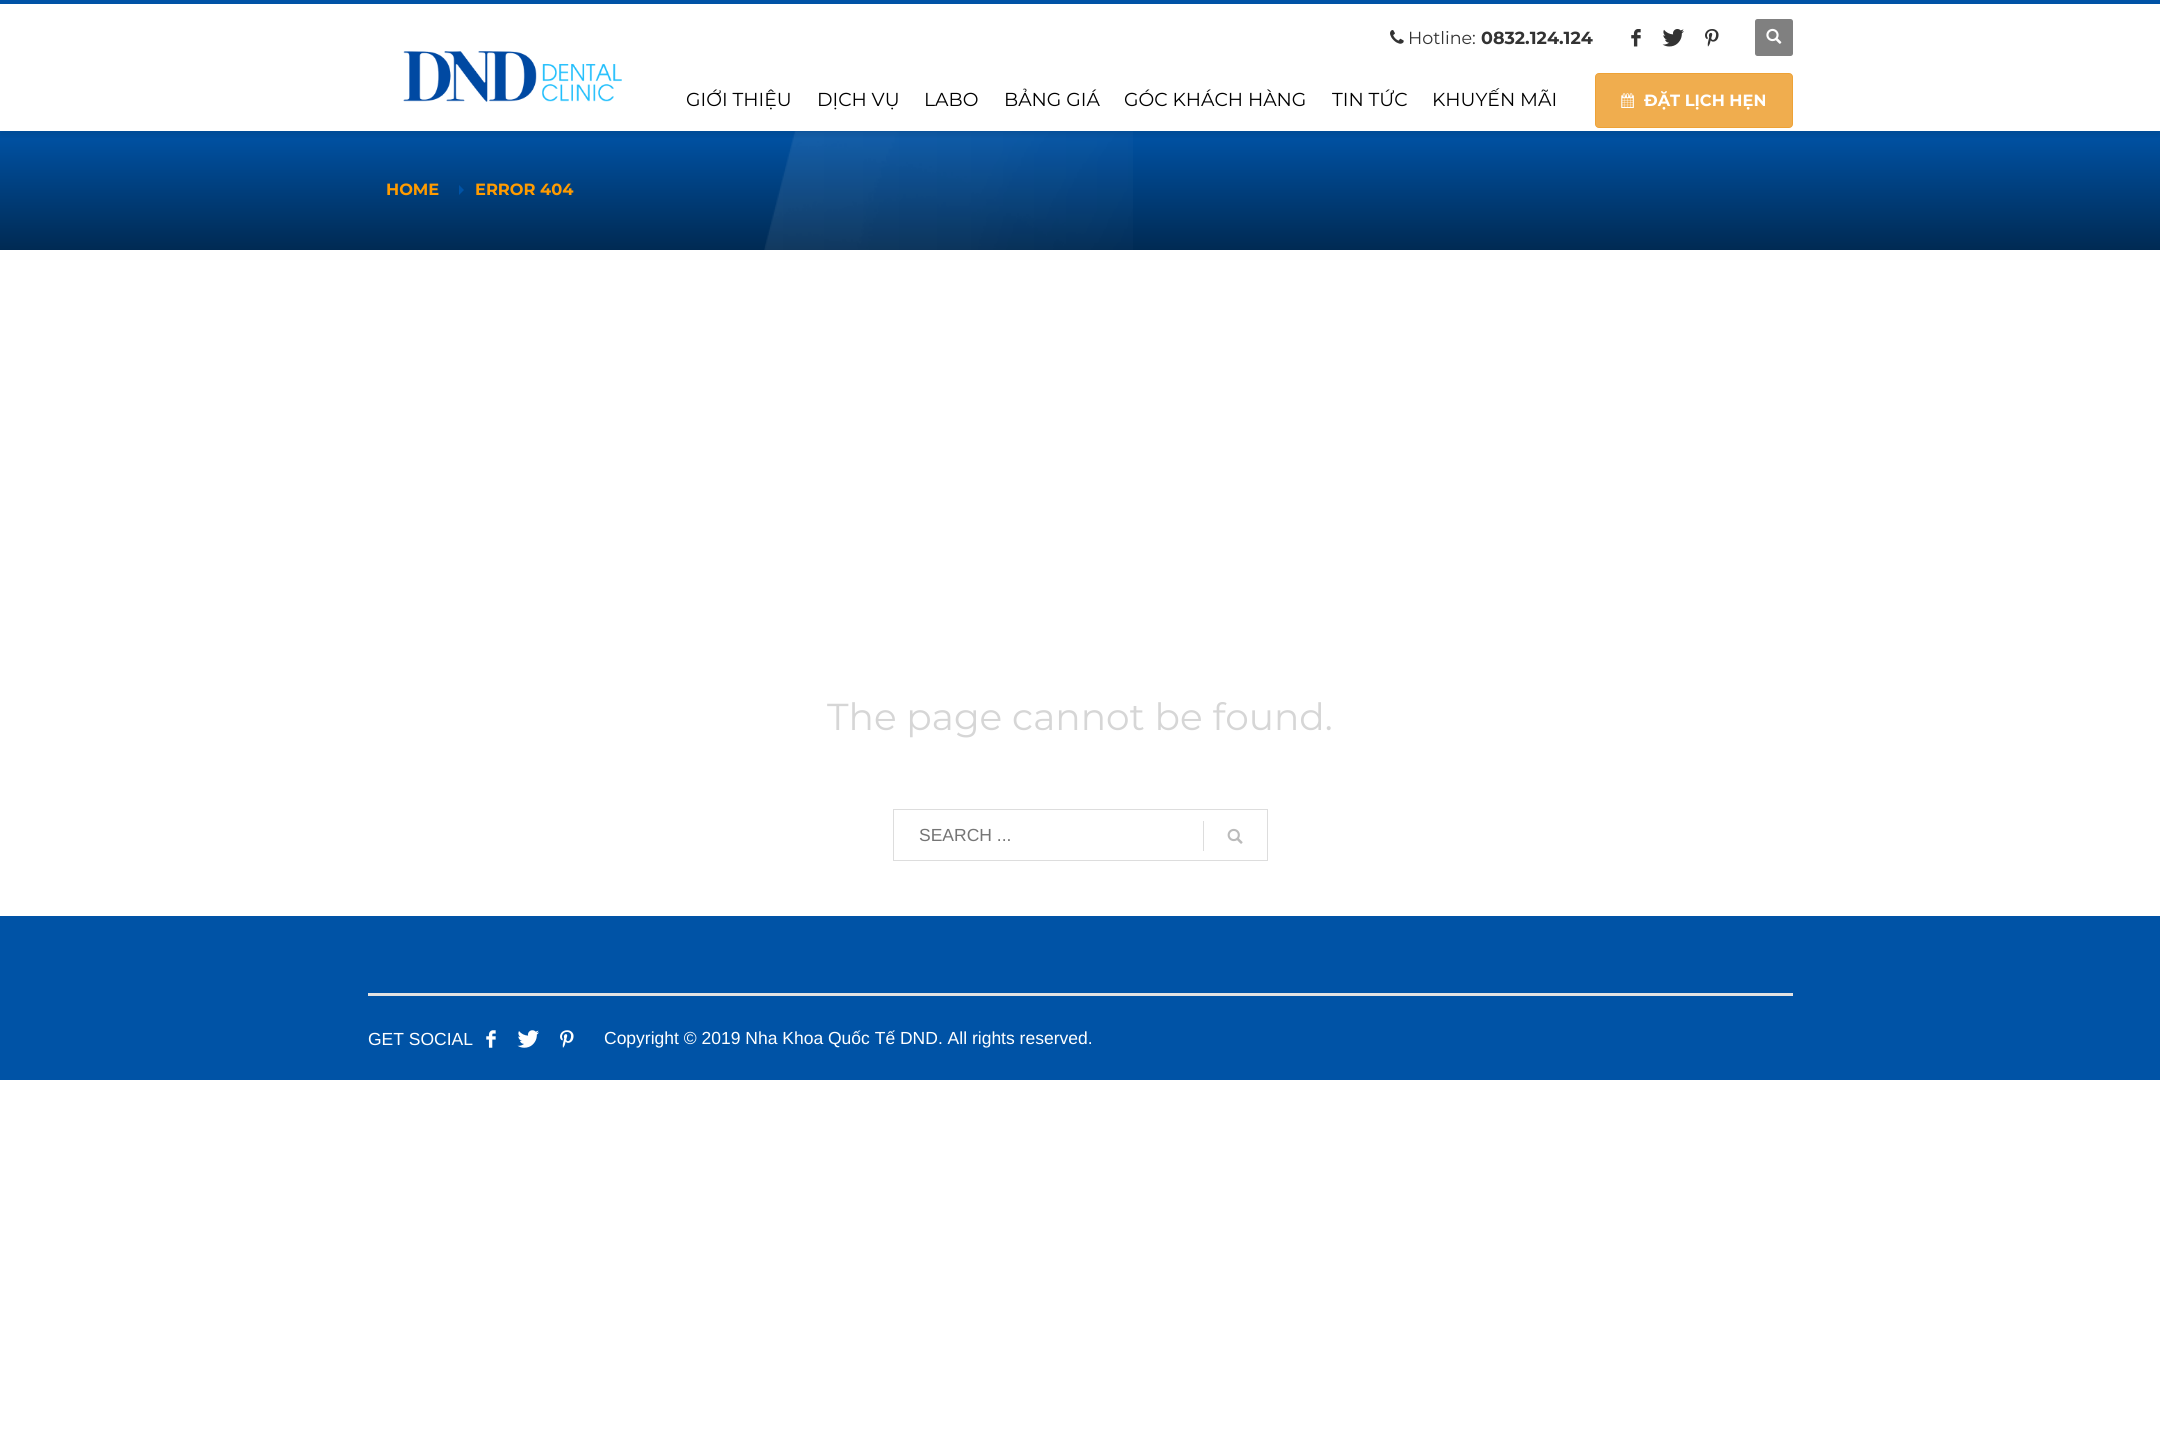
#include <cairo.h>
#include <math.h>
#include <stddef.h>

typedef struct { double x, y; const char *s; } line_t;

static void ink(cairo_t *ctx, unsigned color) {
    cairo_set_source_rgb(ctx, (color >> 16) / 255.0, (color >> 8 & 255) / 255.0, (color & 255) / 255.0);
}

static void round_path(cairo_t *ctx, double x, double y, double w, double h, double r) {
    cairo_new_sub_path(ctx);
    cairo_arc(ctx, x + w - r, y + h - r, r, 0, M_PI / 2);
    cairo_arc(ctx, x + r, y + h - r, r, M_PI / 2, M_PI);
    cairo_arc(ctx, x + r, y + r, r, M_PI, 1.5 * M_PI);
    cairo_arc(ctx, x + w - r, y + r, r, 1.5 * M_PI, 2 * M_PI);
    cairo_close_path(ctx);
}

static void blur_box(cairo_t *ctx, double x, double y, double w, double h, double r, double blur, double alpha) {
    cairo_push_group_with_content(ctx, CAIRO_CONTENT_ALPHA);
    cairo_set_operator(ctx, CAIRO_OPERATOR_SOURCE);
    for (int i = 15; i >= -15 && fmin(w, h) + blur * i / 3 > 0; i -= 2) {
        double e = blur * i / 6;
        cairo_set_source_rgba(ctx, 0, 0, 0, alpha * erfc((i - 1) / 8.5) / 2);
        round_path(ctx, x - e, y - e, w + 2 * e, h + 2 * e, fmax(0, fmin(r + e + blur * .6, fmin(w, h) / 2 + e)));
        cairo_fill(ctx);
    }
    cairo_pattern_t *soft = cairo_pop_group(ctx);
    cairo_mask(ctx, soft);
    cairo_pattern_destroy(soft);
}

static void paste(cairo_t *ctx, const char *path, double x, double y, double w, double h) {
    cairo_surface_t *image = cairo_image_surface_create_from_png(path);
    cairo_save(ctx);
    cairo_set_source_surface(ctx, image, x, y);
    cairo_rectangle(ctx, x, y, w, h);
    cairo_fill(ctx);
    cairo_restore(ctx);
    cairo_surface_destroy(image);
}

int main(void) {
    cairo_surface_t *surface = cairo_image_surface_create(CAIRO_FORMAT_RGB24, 2160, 1455);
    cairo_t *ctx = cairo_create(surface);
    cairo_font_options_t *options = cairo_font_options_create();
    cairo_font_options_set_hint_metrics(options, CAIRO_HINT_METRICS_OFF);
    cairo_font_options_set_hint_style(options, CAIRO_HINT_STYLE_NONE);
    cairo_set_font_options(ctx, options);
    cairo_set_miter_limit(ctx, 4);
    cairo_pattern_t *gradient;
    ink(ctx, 0xFFFFFF);
    cairo_paint(ctx);
    gradient = cairo_pattern_create_linear(1080, 131, 1080, 250);
    cairo_pattern_add_color_stop_rgba(gradient, 0, 0, 0.325, 0.651, 1);
    cairo_pattern_add_color_stop_rgba(gradient, 1, 0, 0.165, 0.325, 1);
    cairo_set_source(ctx, gradient);
    cairo_pattern_destroy(gradient);
    cairo_rectangle(ctx, 0, 131, 2160, 119);
    cairo_fill(ctx);
    paste(ctx, "media/8.png", 764, 131, 369, 119);
    cairo_save(ctx);
    cairo_rectangle(ctx, 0, 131, 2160, 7);
    cairo_clip(ctx);
    ink(ctx, 0x000000);
    blur_box(ctx, 0, 4, 2160, 131, 0, 3, 0.1);
    cairo_restore(ctx);
    ink(ctx, 0x0053A6);
    cairo_rectangle(ctx, 0, 0, 2160, 4);
    cairo_fill(ctx);
    paste(ctx, "media/1.png", 403, 51, 219, 51);
    paste(ctx, "media/2.png", 1390, 30, 14, 14);
    cairo_select_font_face(ctx, "Montserrat", CAIRO_FONT_SLANT_NORMAL, CAIRO_FONT_WEIGHT_NORMAL);
    cairo_set_font_size(ctx, 17.5);
    ink(ctx, 0x333333);
    cairo_move_to(ctx, 1408, 44);
    cairo_show_text(ctx, "Hotline:");
    cairo_select_font_face(ctx, "Montserrat", CAIRO_FONT_SLANT_NORMAL, CAIRO_FONT_WEIGHT_BOLD);
    cairo_move_to(ctx, 1481, 44);
    cairo_show_text(ctx, "0832.124.124");
    paste(ctx, "media/3.png", 1631, 29, 10, 18);
    paste(ctx, "media/4.png", 1662, 29, 22, 18);
    paste(ctx, "media/5.png", 1705, 29, 14, 18);
    ink(ctx, 0x808080);
    round_path(ctx, 1755, 19, 38, 37, 2.5);
    cairo_fill(ctx);
    paste(ctx, "media/6.png", 1766, 28, 16, 16);
    cairo_select_font_face(ctx, "Montserrat", CAIRO_FONT_SLANT_NORMAL, CAIRO_FONT_WEIGHT_NORMAL);
    cairo_set_font_size(ctx, 18.75);
    ink(ctx, 0x000000);
    {
        static const line_t items[] = {
            {686, 106, "GIỚI THIỆU"},
            {817, 106, "DỊCH VỤ"},
            {924, 106, "LABO"},
            {1004, 106, "BẢNG GIÁ"},
            {1124, 106, "GÓC KHÁCH HÀNG"},
            {1332, 106, "TIN TỨC"},
            {1432, 106, "KHUYẾN MÃI"},
        };
        for (size_t i = 0; i < sizeof items / sizeof *items; i++) {
            cairo_move_to(ctx, items[i].x, items[i].y);
            cairo_show_text(ctx, items[i].s);
        }
    }
    ink(ctx, 0xF0AD4E);
    round_path(ctx, 1595.5, 73.5, 197, 54, 3.5);
    cairo_fill_preserve(ctx);
    ink(ctx, 0xEEA236);
    cairo_set_line_width(ctx, 1);
    cairo_stroke(ctx);
    paste(ctx, "media/7.png", 1621, 93, 13, 15);
    cairo_select_font_face(ctx, "Montserrat", CAIRO_FONT_SLANT_NORMAL, CAIRO_FONT_WEIGHT_BOLD);
    cairo_set_font_size(ctx, 16.25);
    ink(ctx, 0xFFFFFF);
    cairo_move_to(ctx, 1644, 106);
    cairo_show_text(ctx, "ĐẶT LỊCH HẸN");
    ink(ctx, 0xFF9B00);
    cairo_move_to(ctx, 386, 195);
    cairo_show_text(ctx, "HOME");
    ink(ctx, 0x0053A6);
    cairo_new_path(ctx);
    cairo_move_to(ctx, 459, 195);
    cairo_line_to(ctx, 459, 185);
    cairo_line_to(ctx, 464, 190);
    cairo_close_path(ctx);
    cairo_fill(ctx);
    ink(ctx, 0xFF9B00);
    cairo_move_to(ctx, 475, 195);
    cairo_show_text(ctx, "ERROR 404");
    cairo_select_font_face(ctx, "Montserrat", CAIRO_FONT_SLANT_NORMAL, CAIRO_FONT_WEIGHT_NORMAL);
    cairo_set_font_size(ctx, 37.5);
    ink(ctx, 0xD6D6D6);
    cairo_move_to(ctx, 827, 730);
    cairo_show_text(ctx, "The page cannot be found.");
    cairo_rectangle(ctx, 893.5, 809.5, 374, 51);
    ink(ctx, 0xDDDDDD);
    cairo_stroke(ctx);
    cairo_select_font_face(ctx, "Liberation Sans", CAIRO_FONT_SLANT_NORMAL, CAIRO_FONT_WEIGHT_NORMAL);
    cairo_set_font_size(ctx, 17.5);
    ink(ctx, 0x757575);
    cairo_move_to(ctx, 919, 841);
    cairo_show_text(ctx, "SEARCH ...");
    ink(ctx, 0xDDDDDD);
    cairo_rectangle(ctx, 1203, 821, 1, 30);
    cairo_fill(ctx);
    paste(ctx, "media/9.png", 1227, 828, 16, 16);
    ink(ctx, 0x0053A6);
    cairo_rectangle(ctx, 0, 916, 2160, 164);
    cairo_fill(ctx);
    ink(ctx, 0xE2E2E2);
    cairo_rectangle(ctx, 368, 993, 1425, 3);
    cairo_fill(ctx);
    ink(ctx, 0xFFFFFF);
    cairo_move_to(ctx, 368, 1045);
    cairo_show_text(ctx, "GET SOCIAL");
    paste(ctx, "media/10.png", 486, 1030, 10, 18);
    paste(ctx, "media/11.png", 517, 1030, 22, 18);
    paste(ctx, "media/12.png", 560, 1030, 14, 18);
    cairo_move_to(ctx, 604, 1044);
    cairo_show_text(ctx, "Copyright © 2019 Nha Khoa Quốc Tế DND. All rights reserved.");
    cairo_surface_write_to_png(surface, "image.png");
    cairo_font_options_destroy(options);
    cairo_destroy(ctx);
    cairo_surface_destroy(surface);
    return 0;
}
